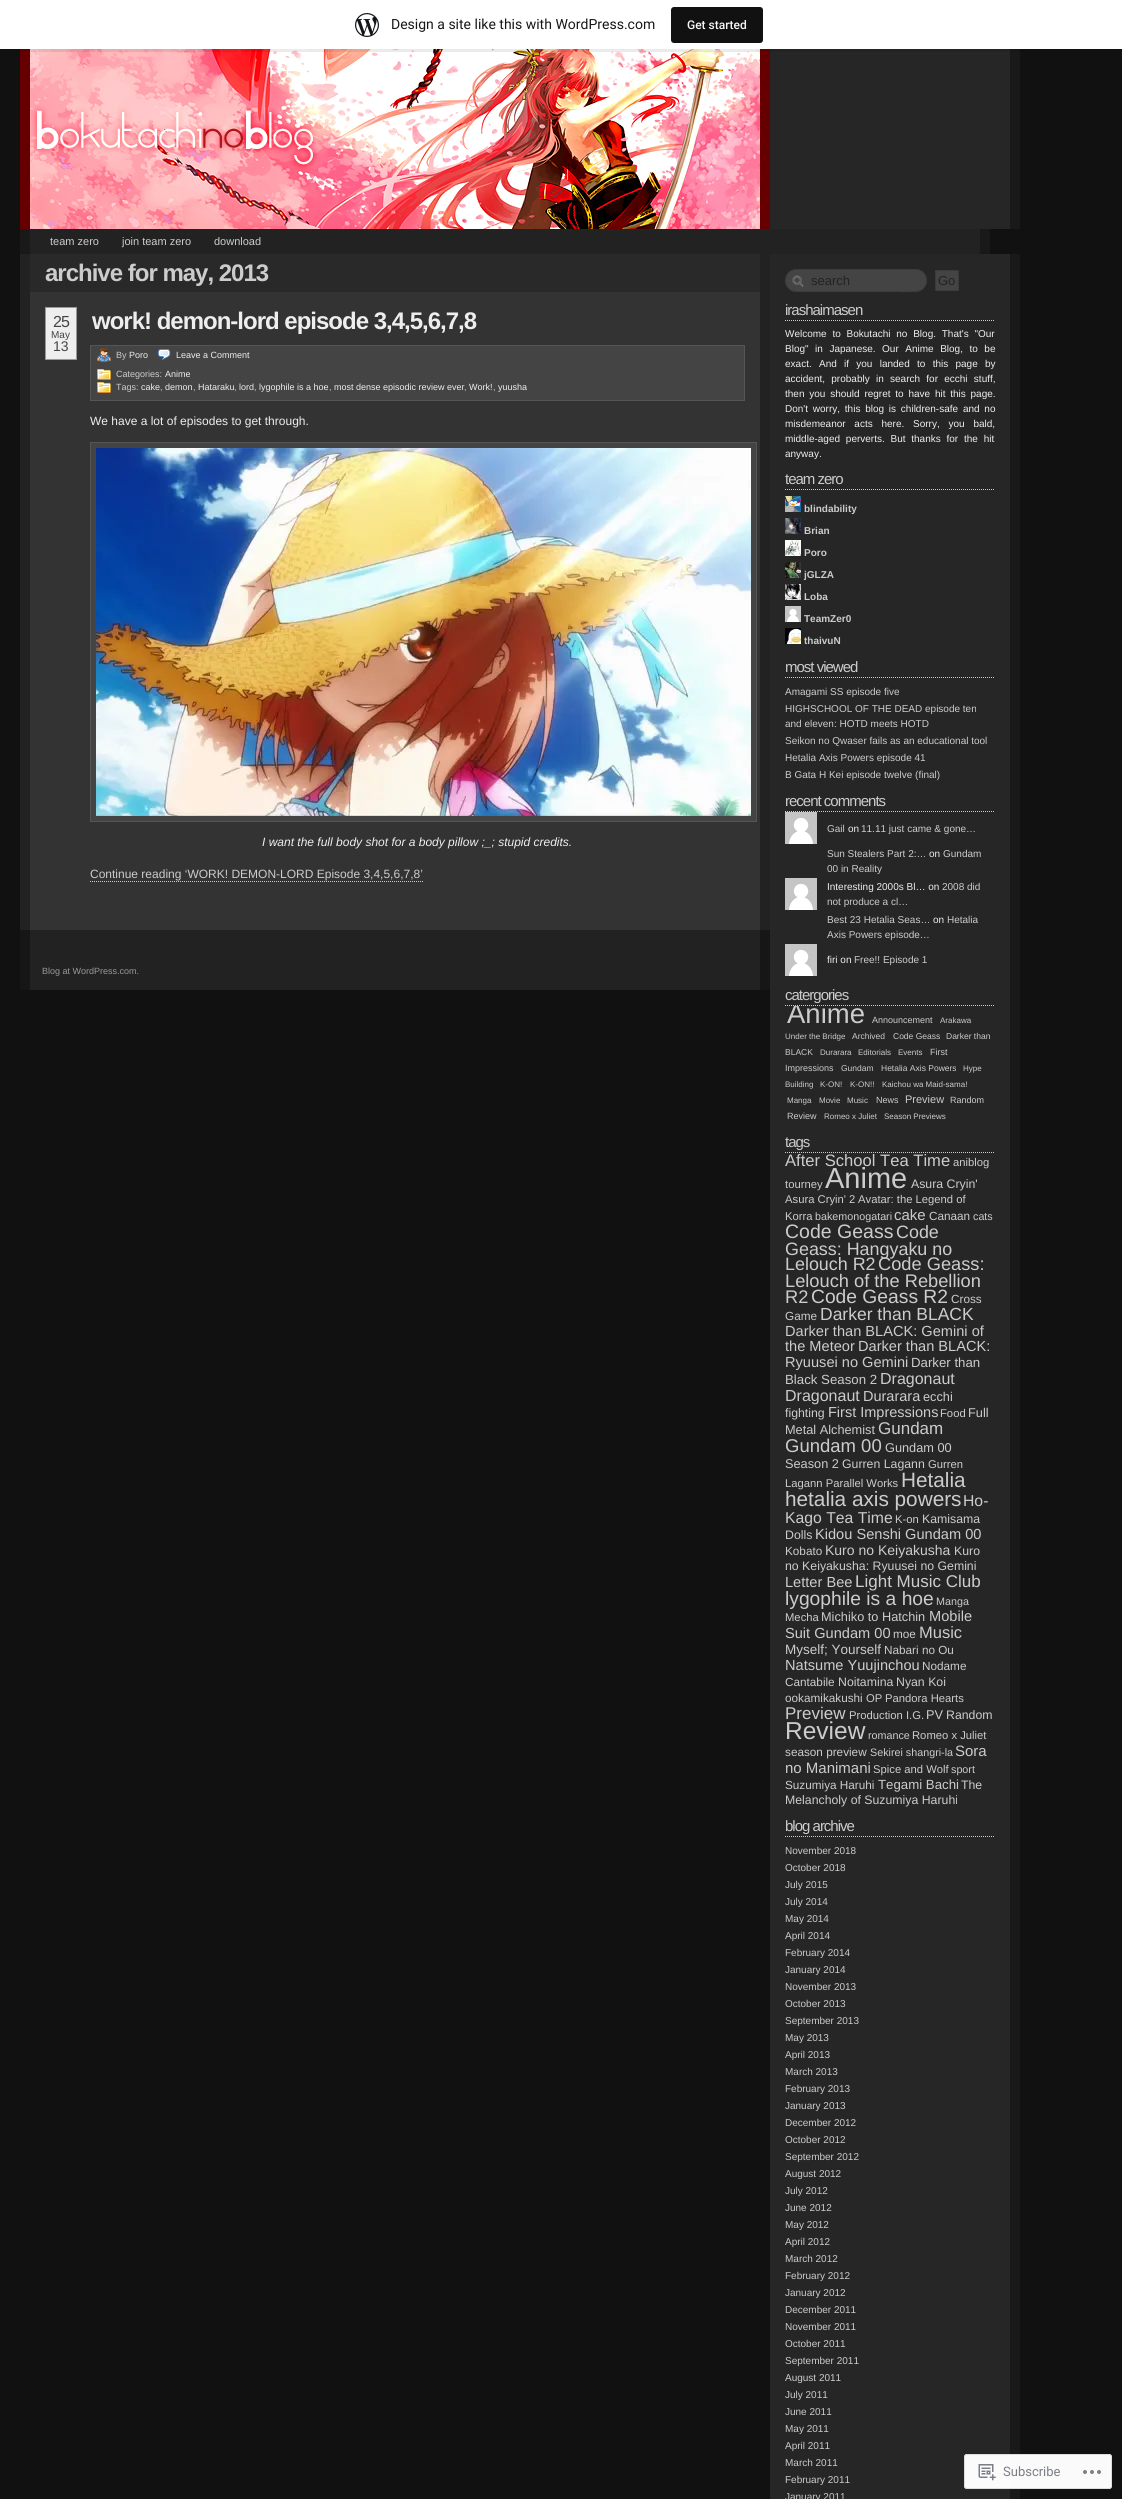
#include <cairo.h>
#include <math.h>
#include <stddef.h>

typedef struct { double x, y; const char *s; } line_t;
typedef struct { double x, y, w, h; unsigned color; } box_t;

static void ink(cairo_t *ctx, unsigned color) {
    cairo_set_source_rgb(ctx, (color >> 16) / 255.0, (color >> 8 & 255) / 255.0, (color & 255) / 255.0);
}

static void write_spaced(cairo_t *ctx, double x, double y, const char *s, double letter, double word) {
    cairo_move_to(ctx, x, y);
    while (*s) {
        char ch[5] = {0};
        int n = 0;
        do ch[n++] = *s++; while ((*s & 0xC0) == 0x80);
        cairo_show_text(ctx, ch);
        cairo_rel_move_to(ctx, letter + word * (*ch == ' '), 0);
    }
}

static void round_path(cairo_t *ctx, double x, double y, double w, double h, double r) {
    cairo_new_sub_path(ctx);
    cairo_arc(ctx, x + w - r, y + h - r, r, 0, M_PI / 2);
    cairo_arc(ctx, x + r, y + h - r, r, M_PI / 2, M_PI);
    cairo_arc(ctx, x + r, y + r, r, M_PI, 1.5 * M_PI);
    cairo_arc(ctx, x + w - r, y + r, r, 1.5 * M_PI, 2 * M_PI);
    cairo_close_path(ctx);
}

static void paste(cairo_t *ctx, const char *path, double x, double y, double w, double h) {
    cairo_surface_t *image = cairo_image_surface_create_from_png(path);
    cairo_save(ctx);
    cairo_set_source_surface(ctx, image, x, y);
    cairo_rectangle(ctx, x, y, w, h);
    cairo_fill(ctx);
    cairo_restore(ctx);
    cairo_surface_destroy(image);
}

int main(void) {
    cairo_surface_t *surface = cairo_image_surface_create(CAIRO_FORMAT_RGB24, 1122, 2499);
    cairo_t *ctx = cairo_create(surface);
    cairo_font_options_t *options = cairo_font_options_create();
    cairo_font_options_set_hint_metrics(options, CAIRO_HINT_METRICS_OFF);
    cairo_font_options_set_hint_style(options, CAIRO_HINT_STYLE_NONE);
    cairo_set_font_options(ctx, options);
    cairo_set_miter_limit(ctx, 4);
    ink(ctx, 0x111111);
    cairo_paint(ctx);
    paste(ctx, "media/2.png", 30, 49, 730, 180);
    {
        static const box_t items[] = {
            {760, 49, 10, 180, 0x660000},
            {20, 49, 10, 180, 0x660000},
            {770, 49, 240, 180, 0x262626},
            {1010, 49, 10, 180, 0x191919},
        };
        for (size_t i = 0; i < sizeof items / sizeof *items; i++) {
            ink(ctx, items[i].color);
            cairo_rectangle(ctx, items[i].x, items[i].y, items[i].w, items[i].h);
            cairo_fill(ctx);
        }
    }
    cairo_set_source_rgba(ctx, 0, 0, 0, 0.08);
    cairo_new_path(ctx);
    cairo_move_to(ctx, 1, 49);
    cairo_line_to(ctx, 1, 52);
    cairo_line_to(ctx, 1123, 52);
    cairo_line_to(ctx, 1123, 3);
    cairo_line_to(ctx, 1122, 3);
    cairo_line_to(ctx, 1122, 49);
    cairo_close_path(ctx);
    cairo_fill(ctx);
    ink(ctx, 0xFFFFFF);
    cairo_rectangle(ctx, 0, 0, 1122, 49);
    cairo_fill(ctx);
    paste(ctx, "media/1.png", 355, 13, 24, 24);
    cairo_select_font_face(ctx, "Roboto", CAIRO_FONT_SLANT_NORMAL, CAIRO_FONT_WEIGHT_NORMAL);
    cairo_set_font_size(ctx, 14);
    ink(ctx, 0x171717);
    cairo_move_to(ctx, 391, 29);
    cairo_show_text(ctx, "Design a site like this with WordPress.com");
    ink(ctx, 0x111111);
    round_path(ctx, 671, 7, 92, 36, 3);
    cairo_fill(ctx);
    cairo_select_font_face(ctx, "Roboto Medium", CAIRO_FONT_SLANT_NORMAL, CAIRO_FONT_WEIGHT_NORMAL);
    cairo_set_font_size(ctx, 12);
    ink(ctx, 0xF6F7F7);
    cairo_move_to(ctx, 687, 29);
    cairo_show_text(ctx, "Get started");
    {
        static const box_t items[] = {
            {30, 229, 950, 25, 0x222222},
            {980, 229, 10, 25, 0x191919},
            {20, 229, 10, 25, 0x191919},
        };
        for (size_t i = 0; i < sizeof items / sizeof *items; i++) {
            ink(ctx, items[i].color);
            cairo_rectangle(ctx, items[i].x, items[i].y, items[i].w, items[i].h);
            cairo_fill(ctx);
        }
    }
    cairo_select_font_face(ctx, "Liberation Sans", CAIRO_FONT_SLANT_NORMAL, CAIRO_FONT_WEIGHT_NORMAL);
    cairo_set_font_size(ctx, 11);
    ink(ctx, 0xCCCCCC);
    {
        static const line_t items[] = {
            {50, 245, "team zero"},
            {122, 245, "join team zero"},
            {214, 245, "download"},
        };
        for (size_t i = 0; i < sizeof items / sizeof *items; i++) {
            cairo_move_to(ctx, items[i].x, items[i].y);
            cairo_show_text(ctx, items[i].s);
        }
    }
    {
        static const box_t items[] = {
            {30, 292, 730, 638, 0x333333},
            {760, 254, 10, 676, 0x222222},
            {20, 254, 10, 676, 0x222222},
            {30, 254, 730, 38, 0x292929},
        };
        for (size_t i = 0; i < sizeof items / sizeof *items; i++) {
            ink(ctx, items[i].color);
            cairo_rectangle(ctx, items[i].x, items[i].y, items[i].w, items[i].h);
            cairo_fill(ctx);
        }
    }
    cairo_select_font_face(ctx, "Liberation Sans", CAIRO_FONT_SLANT_NORMAL, CAIRO_FONT_WEIGHT_BOLD);
    cairo_set_font_size(ctx, 24);
    ink(ctx, 0xCCCCCC);
    write_spaced(ctx, 45, 281, "archive for may, 2013", -1, 0);
    ink(ctx, 0xEEEEEE);
    cairo_rectangle(ctx, 45.5, 307.5, 31, 52);
    cairo_fill_preserve(ctx);
    ink(ctx, 0x999999);
    cairo_set_line_width(ctx, 1);
    cairo_stroke(ctx);
    cairo_select_font_face(ctx, "Liberation Sans", CAIRO_FONT_SLANT_NORMAL, CAIRO_FONT_WEIGHT_NORMAL);
    cairo_set_font_size(ctx, 16);
    ink(ctx, 0x444444);
    write_spaced(ctx, 53, 327, "25", -1, 0);
    cairo_set_font_size(ctx, 10);
    cairo_move_to(ctx, 51, 338);
    cairo_show_text(ctx, "May");
    cairo_set_font_size(ctx, 14);
    cairo_move_to(ctx, 53, 351);
    cairo_show_text(ctx, "13");
    cairo_select_font_face(ctx, "Liberation Sans", CAIRO_FONT_SLANT_NORMAL, CAIRO_FONT_WEIGHT_BOLD);
    cairo_set_font_size(ctx, 24);
    ink(ctx, 0xEEEEEE);
    write_spaced(ctx, 92, 329, "work! demon-lord episode 3,4,5,6,7,8", -1, 0);
    ink(ctx, 0x444444);
    cairo_rectangle(ctx, 90.5, 345.5, 654, 55);
    cairo_fill_preserve(ctx);
    ink(ctx, 0x555555);
    cairo_stroke(ctx);
    paste(ctx, "media/3.png", 97, 348, 14, 14);
    cairo_select_font_face(ctx, "Liberation Sans", CAIRO_FONT_SLANT_NORMAL, CAIRO_FONT_WEIGHT_NORMAL);
    cairo_set_font_size(ctx, 9);
    ink(ctx, 0xCCCCCC);
    cairo_move_to(ctx, 116, 358);
    cairo_show_text(ctx, "By");
    ink(ctx, 0xEEEEEE);
    cairo_move_to(ctx, 129, 358);
    cairo_show_text(ctx, "Poro");
    paste(ctx, "media/4.png", 157, 349, 14, 11);
    cairo_move_to(ctx, 176, 358);
    cairo_show_text(ctx, "Leave a Comment");
    paste(ctx, "media/5.png", 97, 369, 14, 11);
    ink(ctx, 0xCCCCCC);
    cairo_move_to(ctx, 116, 377);
    cairo_show_text(ctx, "Categories:");
    ink(ctx, 0xEEEEEE);
    cairo_move_to(ctx, 165, 377);
    cairo_show_text(ctx, "Anime");
    paste(ctx, "media/5.png", 97, 382, 14, 11);
    ink(ctx, 0xCCCCCC);
    cairo_move_to(ctx, 116, 390);
    cairo_show_text(ctx, "Tags:");
    ink(ctx, 0xEEEEEE);
    cairo_move_to(ctx, 141, 390);
    cairo_show_text(ctx, "cake");
    ink(ctx, 0xCCCCCC);
    cairo_move_to(ctx, 160, 390);
    cairo_show_text(ctx, ",");
    ink(ctx, 0xEEEEEE);
    cairo_move_to(ctx, 165, 390);
    cairo_show_text(ctx, "demon");
    ink(ctx, 0xCCCCCC);
    cairo_move_to(ctx, 193, 390);
    cairo_show_text(ctx, ",");
    ink(ctx, 0xEEEEEE);
    cairo_move_to(ctx, 198, 390);
    cairo_show_text(ctx, "Hataraku");
    ink(ctx, 0xCCCCCC);
    cairo_move_to(ctx, 234, 390);
    cairo_show_text(ctx, ",");
    ink(ctx, 0xEEEEEE);
    cairo_move_to(ctx, 239, 390);
    cairo_show_text(ctx, "lord");
    ink(ctx, 0xCCCCCC);
    cairo_move_to(ctx, 254, 390);
    cairo_show_text(ctx, ",");
    ink(ctx, 0xEEEEEE);
    cairo_move_to(ctx, 259, 390);
    cairo_show_text(ctx, "lygophile is a hoe");
    ink(ctx, 0xCCCCCC);
    cairo_move_to(ctx, 329, 390);
    cairo_show_text(ctx, ",");
    ink(ctx, 0xEEEEEE);
    cairo_move_to(ctx, 334, 390);
    cairo_show_text(ctx, "most dense episodic review ever");
    ink(ctx, 0xCCCCCC);
    cairo_move_to(ctx, 464, 390);
    cairo_show_text(ctx, ",");
    ink(ctx, 0xEEEEEE);
    cairo_move_to(ctx, 469, 390);
    cairo_show_text(ctx, "Work!");
    ink(ctx, 0xCCCCCC);
    cairo_move_to(ctx, 493, 390);
    cairo_show_text(ctx, ",");
    ink(ctx, 0xEEEEEE);
    cairo_move_to(ctx, 498, 390);
    cairo_show_text(ctx, "yuusha");
    cairo_set_font_size(ctx, 12);
    cairo_move_to(ctx, 90, 425);
    cairo_show_text(ctx, "We have a lot of episodes to get through.");
    ink(ctx, 0x444444);
    cairo_rectangle(ctx, 90.5, 442.5, 666, 379);
    cairo_fill_preserve(ctx);
    ink(ctx, 0x555555);
    cairo_stroke(ctx);
    paste(ctx, "media/6.png", 96, 448, 655, 368);
    cairo_select_font_face(ctx, "Liberation Sans", CAIRO_FONT_SLANT_ITALIC, CAIRO_FONT_WEIGHT_NORMAL);
    ink(ctx, 0xEEEEEE);
    cairo_move_to(ctx, 262, 846);
    cairo_show_text(ctx, "I want the full body shot for a body pillow ;_; stupid credits.");
    cairo_select_font_face(ctx, "Liberation Sans", CAIRO_FONT_SLANT_NORMAL, CAIRO_FONT_WEIGHT_NORMAL);
    ink(ctx, 0xCCCCCC);
    cairo_move_to(ctx, 90, 878);
    cairo_show_text(ctx, "Continue reading ‘WORK! DEMON-LORD Episode 3,4,5,6,7,8’");
    cairo_new_path(ctx);
    cairo_move_to(ctx, 90, 881.5);
    cairo_line_to(ctx, 423, 881.5);
    cairo_set_dash(ctx, (double[]){1, 1}, 2, 0);
    cairo_stroke(ctx);
    ink(ctx, 0x262626);
    cairo_rectangle(ctx, 770, 254, 240, 2245);
    cairo_fill(ctx);
    ink(ctx, 0x191919);
    cairo_rectangle(ctx, 1010, 254, 10, 2245);
    cairo_fill(ctx);
    ink(ctx, 0x444444);
    round_path(ctx, 785, 269, 142, 23, 11.5);
    cairo_fill(ctx);
    paste(ctx, "media/7.png", 792, 275, 12, 12);
    cairo_new_path(ctx);
    cairo_move_to(ctx, 796.5, 269.5);
    cairo_line_to(ctx, 917.5, 269.5);
    cairo_curve_to(ctx, 928, 272, 929.5, 286.5, 920, 290.5);
    cairo_curve_to(ctx, 913.5, 293, 896, 291.5, 895.5, 291.5);
    cairo_line_to(ctx, 794.5, 291.5);
    cairo_curve_to(ctx, 781.5, 288.5, 783.5, 269.5, 796.5, 269.5);
    cairo_close_path(ctx);
    ink(ctx, 0x333333);
    cairo_stroke(ctx);
    cairo_set_font_size(ctx, 13);
    ink(ctx, 0x222222);
    cairo_move_to(ctx, 811, 285);
    cairo_show_text(ctx, "search");
    ink(ctx, 0x444444);
    cairo_rectangle(ctx, 935, 270, 24, 21);
    cairo_fill(ctx);
    cairo_new_path(ctx);
    cairo_move_to(ctx, 935, 270.5);
    cairo_line_to(ctx, 959, 270.5);
    cairo_move_to(ctx, 958.5, 270);
    cairo_line_to(ctx, 958.5, 291);
    cairo_move_to(ctx, 935, 290.5);
    cairo_line_to(ctx, 959, 290.5);
    cairo_move_to(ctx, 935.5, 270);
    cairo_line_to(ctx, 935.5, 291);
    ink(ctx, 0x333333);
    cairo_stroke(ctx);
    ink(ctx, 0x222222);
    cairo_move_to(ctx, 938, 285);
    cairo_show_text(ctx, "Go");
    cairo_new_path(ctx);
    cairo_move_to(ctx, 785, 320.5);
    cairo_line_to(ctx, 995, 320.5);
    ink(ctx, 0xCCCCCC);
    cairo_stroke(ctx);
    cairo_set_font_size(ctx, 15);
    write_spaced(ctx, 785, 315, "irashaimasen", -1, 0);
    cairo_set_font_size(ctx, 10);
    ink(ctx, 0xEEEEEE);
    write_spaced(ctx, 785, 337, "Welcome to Bokutachi no Blog. That's \"Our", 0, 3);
    write_spaced(ctx, 785, 352, "Blog\" in Japanese. Our Anime Blog, to be", 0, 3.75);
    write_spaced(ctx, 785, 367, "exact. And if you landed to this page by", 0, 4.5);
    write_spaced(ctx, 785, 382, "accident, probably in search for ecchi stuff,", 0, 3.5);
    write_spaced(ctx, 785, 397, "then you should regret to have hit this page.", 0, 2);
    write_spaced(ctx, 785, 412, "Don't worry, this blog is children-safe and no", 0, 2);
    write_spaced(ctx, 785, 427, "misdemeanor acts here. Sorry, you bald,", 0, 6);
    write_spaced(ctx, 785, 442, "middle-aged perverts. But thanks for the hit", 0, 3);
    cairo_move_to(ctx, 785, 457);
    cairo_show_text(ctx, "anyway.");
    cairo_new_path(ctx);
    cairo_move_to(ctx, 785, 489.5);
    cairo_line_to(ctx, 995, 489.5);
    ink(ctx, 0xCCCCCC);
    cairo_stroke(ctx);
    cairo_set_font_size(ctx, 15);
    write_spaced(ctx, 785, 484, "team zero", -1, 0);
    paste(ctx, "media/8.png", 785, 496, 16, 16);
    cairo_select_font_face(ctx, "Liberation Sans", CAIRO_FONT_SLANT_NORMAL, CAIRO_FONT_WEIGHT_BOLD);
    cairo_set_font_size(ctx, 10);
    cairo_move_to(ctx, 804, 512);
    cairo_show_text(ctx, "blindability");
    paste(ctx, "media/9.png", 785, 518, 16, 16);
    cairo_move_to(ctx, 804, 534);
    cairo_show_text(ctx, "Brian");
    paste(ctx, "media/10.png", 785, 540, 16, 16);
    cairo_move_to(ctx, 804, 556);
    cairo_show_text(ctx, "Poro");
    paste(ctx, "media/11.png", 785, 562, 16, 16);
    cairo_move_to(ctx, 804, 578);
    cairo_show_text(ctx, "jGLZA");
    paste(ctx, "media/12.png", 785, 584, 16, 16);
    cairo_move_to(ctx, 804, 600);
    cairo_show_text(ctx, "Loba");
    paste(ctx, "media/13.png", 785, 606, 16, 16);
    cairo_move_to(ctx, 804, 622);
    cairo_show_text(ctx, "TeamZer0");
    paste(ctx, "media/14.png", 785, 628, 16, 16);
    cairo_move_to(ctx, 804, 644);
    cairo_show_text(ctx, "thaivuN");
    cairo_new_path(ctx);
    cairo_move_to(ctx, 785, 677.5);
    cairo_line_to(ctx, 995, 677.5);
    cairo_stroke(ctx);
    cairo_select_font_face(ctx, "Liberation Sans", CAIRO_FONT_SLANT_NORMAL, CAIRO_FONT_WEIGHT_NORMAL);
    cairo_set_font_size(ctx, 15);
    write_spaced(ctx, 785, 672, "most viewed", -1, 0);
    cairo_set_font_size(ctx, 10);
    {
        static const line_t items[] = {
            {785, 695, "Amagami SS episode five"},
            {785, 712, "HIGHSCHOOL OF THE DEAD episode ten"},
            {785, 727, "and eleven: HOTD meets HOTD"},
            {785, 744, "Seikon no Qwaser fails as an educational tool"},
            {785, 761, "Hetalia Axis Powers episode 41"},
            {785, 778, "B Gata H Kei episode twelve (final)"},
        };
        for (size_t i = 0; i < sizeof items / sizeof *items; i++) {
            cairo_move_to(ctx, items[i].x, items[i].y);
            cairo_show_text(ctx, items[i].s);
        }
    }
    cairo_new_path(ctx);
    cairo_move_to(ctx, 785, 811.5);
    cairo_line_to(ctx, 995, 811.5);
    cairo_stroke(ctx);
    cairo_set_font_size(ctx, 15);
    write_spaced(ctx, 785, 806, "recent comments", -1, 0);
    paste(ctx, "media/15.png", 785, 812, 32, 32);
    cairo_set_font_size(ctx, 10);
    cairo_move_to(ctx, 827, 832);
    cairo_show_text(ctx, "Gail");
    ink(ctx, 0xEEEEEE);
    cairo_move_to(ctx, 848, 832);
    cairo_show_text(ctx, "on");
    ink(ctx, 0xCCCCCC);
    cairo_move_to(ctx, 861, 832);
    cairo_show_text(ctx, "11.11 just came & gone…");
    cairo_move_to(ctx, 827, 857);
    cairo_show_text(ctx, "Sun Stealers Part 2:…");
    ink(ctx, 0xEEEEEE);
    cairo_move_to(ctx, 929, 857);
    cairo_show_text(ctx, "on");
    ink(ctx, 0xCCCCCC);
    cairo_move_to(ctx, 943, 857);
    cairo_show_text(ctx, "Gundam");
    cairo_move_to(ctx, 827, 872);
    cairo_show_text(ctx, "00 in Reality");
    paste(ctx, "media/15.png", 785, 878, 32, 32);
    ink(ctx, 0xEEEEEE);
    cairo_move_to(ctx, 827, 890);
    cairo_show_text(ctx, "Interesting 2000s Bl… on");
    ink(ctx, 0xCCCCCC);
    {
        static const line_t items[] = {
            {942, 890, "2008 did"},
            {827, 905, "not produce a cl…"},
            {827, 923, "Best 23 Hetalia Seas…"},
        };
        for (size_t i = 0; i < sizeof items / sizeof *items; i++) {
            cairo_move_to(ctx, items[i].x, items[i].y);
            cairo_show_text(ctx, items[i].s);
        }
    }
    ink(ctx, 0xEEEEEE);
    cairo_move_to(ctx, 933, 923);
    cairo_show_text(ctx, "on");
    ink(ctx, 0xCCCCCC);
    cairo_move_to(ctx, 947, 923);
    cairo_show_text(ctx, "Hetalia");
    cairo_move_to(ctx, 827, 938);
    cairo_show_text(ctx, "Axis Powers episode…");
    paste(ctx, "media/15.png", 785, 944, 32, 32);
    ink(ctx, 0xEEEEEE);
    cairo_move_to(ctx, 827, 963);
    cairo_show_text(ctx, "firi on");
    ink(ctx, 0xCCCCCC);
    cairo_move_to(ctx, 854, 963);
    cairo_show_text(ctx, "Free!! Episode 1");
    cairo_new_path(ctx);
    cairo_move_to(ctx, 785, 1005.5);
    cairo_line_to(ctx, 995, 1005.5);
    cairo_stroke(ctx);
    cairo_set_font_size(ctx, 15);
    write_spaced(ctx, 785, 1000, "catergories", -1, 0);
    cairo_save(ctx);
    cairo_rectangle(ctx, 785, 1006, 210, 118);
    cairo_clip(ctx);
    cairo_set_font_size(ctx, 27.5);
    cairo_move_to(ctx, 787, 1023);
    cairo_show_text(ctx, "Anime");
    cairo_restore(ctx);
    cairo_set_font_size(ctx, 9);
    cairo_move_to(ctx, 872, 1023);
    cairo_show_text(ctx, "Announcement");
    cairo_set_font_size(ctx, 8);
    cairo_move_to(ctx, 940, 1023);
    cairo_show_text(ctx, "Arakawa");
    cairo_move_to(ctx, 785, 1039);
    cairo_show_text(ctx, "Under the Bridge");
    cairo_set_font_size(ctx, 8.5);
    {
        static const line_t items[] = {
            {852, 1039, "Archived"},
            {893, 1039, "Code Geass"},
            {946, 1039, "Darker than"},
            {785, 1055, "BLACK"},
        };
        for (size_t i = 0; i < sizeof items / sizeof *items; i++) {
            cairo_move_to(ctx, items[i].x, items[i].y);
            cairo_show_text(ctx, items[i].s);
        }
    }
    cairo_set_font_size(ctx, 8);
    {
        static const line_t items[] = {
            {820, 1055, "Durarara"},
            {858, 1055, "Editorials"},
            {898, 1055, "Events"},
        };
        for (size_t i = 0; i < sizeof items / sizeof *items; i++) {
            cairo_move_to(ctx, items[i].x, items[i].y);
            cairo_show_text(ctx, items[i].s);
        }
    }
    cairo_set_font_size(ctx, 9);
    cairo_move_to(ctx, 930, 1055);
    cairo_show_text(ctx, "First");
    cairo_move_to(ctx, 785, 1071);
    cairo_show_text(ctx, "Impressions");
    cairo_set_font_size(ctx, 8.5);
    cairo_move_to(ctx, 841, 1071);
    cairo_show_text(ctx, "Gundam");
    cairo_move_to(ctx, 881, 1071);
    cairo_show_text(ctx, "Hetalia Axis Powers");
    cairo_set_font_size(ctx, 8);
    {
        static const line_t items[] = {
            {963, 1071, "Hype"},
            {785, 1087, "Building"},
            {820, 1087, "K-ON!"},
            {850, 1087, "K-ON!!"},
            {882, 1087, "Kaichou wa Maid-sama!"},
            {787, 1103, "Manga"},
            {819, 1103, "Movie"},
            {847, 1103, "Music"},
        };
        for (size_t i = 0; i < sizeof items / sizeof *items; i++) {
            cairo_move_to(ctx, items[i].x, items[i].y);
            cairo_show_text(ctx, items[i].s);
        }
    }
    cairo_set_font_size(ctx, 9);
    cairo_move_to(ctx, 876, 1103);
    cairo_show_text(ctx, "News");
    cairo_set_font_size(ctx, 11);
    cairo_move_to(ctx, 905, 1103);
    cairo_show_text(ctx, "Preview");
    cairo_set_font_size(ctx, 9);
    cairo_move_to(ctx, 950, 1103);
    cairo_show_text(ctx, "Random");
    cairo_move_to(ctx, 787, 1119);
    cairo_show_text(ctx, "Review");
    cairo_set_font_size(ctx, 8);
    cairo_move_to(ctx, 824, 1119);
    cairo_show_text(ctx, "Romeo x Juliet");
    cairo_move_to(ctx, 884, 1119);
    cairo_show_text(ctx, "Season Previews");
    cairo_new_path(ctx);
    cairo_move_to(ctx, 785, 1152.5);
    cairo_line_to(ctx, 995, 1152.5);
    cairo_stroke(ctx);
    cairo_set_font_size(ctx, 15);
    write_spaced(ctx, 785, 1147, "tags", -1, 0);
    cairo_set_font_size(ctx, 16.6);
    cairo_move_to(ctx, 785, 1166);
    cairo_show_text(ctx, "After School Tea Time");
    cairo_set_font_size(ctx, 11.25);
    cairo_move_to(ctx, 953, 1166);
    cairo_show_text(ctx, "aniblog");
    cairo_move_to(ctx, 785, 1188);
    cairo_show_text(ctx, "tourney");
    cairo_set_font_size(ctx, 29);
    cairo_move_to(ctx, 825, 1188);
    cairo_show_text(ctx, "Anime");
    cairo_set_font_size(ctx, 12.3);
    cairo_move_to(ctx, 911, 1188);
    cairo_show_text(ctx, "Asura Cryin'");
    cairo_set_font_size(ctx, 11.25);
    {
        static const line_t items[] = {
            {785, 1203, "Asura Cryin' 2"},
            {858, 1203, "Avatar: the Legend of"},
            {785, 1220, "Korra"},
        };
        for (size_t i = 0; i < sizeof items / sizeof *items; i++) {
            cairo_move_to(ctx, items[i].x, items[i].y);
            cairo_show_text(ctx, items[i].s);
        }
    }
    cairo_set_font_size(ctx, 10.75);
    cairo_move_to(ctx, 815, 1220);
    cairo_show_text(ctx, "bakemonogatari");
    cairo_set_font_size(ctx, 15);
    cairo_move_to(ctx, 894, 1220);
    cairo_show_text(ctx, "cake");
    cairo_set_font_size(ctx, 11.75);
    cairo_move_to(ctx, 929, 1220);
    cairo_show_text(ctx, "Canaan");
    cairo_set_font_size(ctx, 10.75);
    cairo_move_to(ctx, 973, 1220);
    cairo_show_text(ctx, "cats");
    cairo_set_font_size(ctx, 19.5);
    cairo_move_to(ctx, 785, 1238);
    cairo_show_text(ctx, "Code Geass");
    cairo_set_font_size(ctx, 17.9);
    {
        static const line_t items[] = {
            {896, 1238, "Code"},
            {785, 1255, "Geass: Hangyaku no"},
            {785, 1270, "Lelouch R2"},
        };
        for (size_t i = 0; i < sizeof items / sizeof *items; i++) {
            cairo_move_to(ctx, items[i].x, items[i].y);
            cairo_show_text(ctx, items[i].s);
        }
    }
    cairo_set_font_size(ctx, 18.25);
    {
        static const line_t items[] = {
            {878, 1270, "Code Geass:"},
            {785, 1287, "Lelouch of the Rebellion"},
            {785, 1303, "R2"},
        };
        for (size_t i = 0; i < sizeof items / sizeof *items; i++) {
            cairo_move_to(ctx, items[i].x, items[i].y);
            cairo_show_text(ctx, items[i].s);
        }
    }
    cairo_set_font_size(ctx, 19.25);
    cairo_move_to(ctx, 811, 1303);
    cairo_show_text(ctx, "Code Geass R2");
    cairo_set_font_size(ctx, 11.75);
    cairo_move_to(ctx, 951, 1303);
    cairo_show_text(ctx, "Cross");
    cairo_move_to(ctx, 785, 1320);
    cairo_show_text(ctx, "Game");
    cairo_set_font_size(ctx, 17.5);
    cairo_move_to(ctx, 820, 1320);
    cairo_show_text(ctx, "Darker than BLACK");
    cairo_set_font_size(ctx, 14.6);
    {
        static const line_t items[] = {
            {785, 1336, "Darker than BLACK: Gemini of"},
            {785, 1351, "the Meteor"},
            {858, 1351, "Darker than BLACK:"},
            {785, 1367, "Ryuusei no Gemini"},
        };
        for (size_t i = 0; i < sizeof items / sizeof *items; i++) {
            cairo_move_to(ctx, items[i].x, items[i].y);
            cairo_show_text(ctx, items[i].s);
        }
    }
    cairo_set_font_size(ctx, 13.25);
    cairo_move_to(ctx, 911, 1367);
    cairo_show_text(ctx, "Darker than");
    cairo_move_to(ctx, 785, 1384);
    cairo_show_text(ctx, "Black Season 2");
    cairo_set_font_size(ctx, 16);
    cairo_move_to(ctx, 880, 1384);
    cairo_show_text(ctx, "Dragonaut");
    cairo_move_to(ctx, 785, 1401);
    cairo_show_text(ctx, "Dragonaut");
    cairo_set_font_size(ctx, 14.5);
    cairo_move_to(ctx, 863, 1401);
    cairo_show_text(ctx, "Durarara");
    cairo_set_font_size(ctx, 12.75);
    cairo_move_to(ctx, 923, 1401);
    cairo_show_text(ctx, "ecchi");
    cairo_set_font_size(ctx, 12.3);
    cairo_move_to(ctx, 785, 1417);
    cairo_show_text(ctx, "fighting");
    cairo_set_font_size(ctx, 14.5);
    cairo_move_to(ctx, 828, 1417);
    cairo_show_text(ctx, "First Impressions");
    cairo_set_font_size(ctx, 11.25);
    cairo_move_to(ctx, 940, 1417);
    cairo_show_text(ctx, "Food");
    cairo_set_font_size(ctx, 12.75);
    cairo_move_to(ctx, 968, 1417);
    cairo_show_text(ctx, "Full");
    cairo_move_to(ctx, 785, 1434);
    cairo_show_text(ctx, "Metal Alchemist");
    cairo_set_font_size(ctx, 17);
    cairo_move_to(ctx, 878, 1434);
    cairo_show_text(ctx, "Gundam");
    cairo_set_font_size(ctx, 18.5);
    cairo_move_to(ctx, 785, 1452);
    cairo_show_text(ctx, "Gundam 00");
    cairo_set_font_size(ctx, 12.75);
    cairo_move_to(ctx, 885, 1452);
    cairo_show_text(ctx, "Gundam 00");
    cairo_move_to(ctx, 785, 1468);
    cairo_show_text(ctx, "Season 2");
    cairo_set_font_size(ctx, 12.3);
    cairo_move_to(ctx, 842, 1468);
    cairo_show_text(ctx, "Gurren Lagann");
    cairo_set_font_size(ctx, 11.25);
    cairo_move_to(ctx, 928, 1468);
    cairo_show_text(ctx, "Gurren");
    cairo_move_to(ctx, 785, 1487);
    cairo_show_text(ctx, "Lagann Parallel Works");
    cairo_set_font_size(ctx, 20.75);
    cairo_move_to(ctx, 901, 1487);
    cairo_show_text(ctx, "Hetalia");
    cairo_move_to(ctx, 785, 1506);
    cairo_show_text(ctx, "hetalia axis powers");
    cairo_set_font_size(ctx, 15.75);
    cairo_move_to(ctx, 963, 1506);
    cairo_show_text(ctx, "Ho-");
    cairo_move_to(ctx, 785, 1523);
    cairo_show_text(ctx, "Kago Tea Time");
    cairo_set_font_size(ctx, 11.25);
    cairo_move_to(ctx, 895, 1523);
    cairo_show_text(ctx, "K-on");
    cairo_set_font_size(ctx, 12.3);
    cairo_move_to(ctx, 922, 1523);
    cairo_show_text(ctx, "Kamisama");
    cairo_move_to(ctx, 785, 1539);
    cairo_show_text(ctx, "Dolls");
    cairo_set_font_size(ctx, 14.6);
    cairo_move_to(ctx, 815, 1539);
    cairo_show_text(ctx, "Kidou Senshi Gundam 00");
    cairo_set_font_size(ctx, 11.75);
    cairo_move_to(ctx, 785, 1555);
    cairo_show_text(ctx, "Kobato");
    cairo_set_font_size(ctx, 14);
    cairo_move_to(ctx, 825, 1555);
    cairo_show_text(ctx, "Kuro no Keiyakusha");
    cairo_set_font_size(ctx, 12.3);
    cairo_move_to(ctx, 954, 1555);
    cairo_show_text(ctx, "Kuro");
    cairo_move_to(ctx, 785, 1570);
    cairo_show_text(ctx, "no Keiyakusha: Ryuusei no Gemini");
    cairo_set_font_size(ctx, 14.6);
    cairo_move_to(ctx, 785, 1587);
    cairo_show_text(ctx, "Letter Bee");
    cairo_set_font_size(ctx, 17);
    cairo_move_to(ctx, 855, 1587);
    cairo_show_text(ctx, "Light Music Club");
    cairo_set_font_size(ctx, 19.25);
    cairo_move_to(ctx, 785, 1605);
    cairo_show_text(ctx, "lygophile is a hoe");
    cairo_set_font_size(ctx, 10.75);
    cairo_move_to(ctx, 936, 1605);
    cairo_show_text(ctx, "Manga");
    cairo_set_font_size(ctx, 11.25);
    cairo_move_to(ctx, 785, 1621);
    cairo_show_text(ctx, "Mecha");
    cairo_set_font_size(ctx, 12.75);
    cairo_move_to(ctx, 821, 1621);
    cairo_show_text(ctx, "Michiko to Hatchin");
    cairo_set_font_size(ctx, 14.6);
    cairo_move_to(ctx, 929, 1621);
    cairo_show_text(ctx, "Mobile");
    cairo_move_to(ctx, 785, 1638);
    cairo_show_text(ctx, "Suit Gundam 00");
    cairo_set_font_size(ctx, 11.75);
    cairo_move_to(ctx, 893, 1638);
    cairo_show_text(ctx, "moe");
    cairo_set_font_size(ctx, 16.5);
    cairo_move_to(ctx, 919, 1638);
    cairo_show_text(ctx, "Music");
    cairo_set_font_size(ctx, 13.5);
    cairo_move_to(ctx, 785, 1654);
    cairo_show_text(ctx, "Myself; Yourself");
    cairo_set_font_size(ctx, 11.75);
    cairo_move_to(ctx, 884, 1654);
    cairo_show_text(ctx, "Nabari no Ou");
    cairo_set_font_size(ctx, 14.6);
    cairo_move_to(ctx, 785, 1670);
    cairo_show_text(ctx, "Natsume Yuujinchou");
    cairo_set_font_size(ctx, 11.75);
    cairo_move_to(ctx, 922, 1670);
    cairo_show_text(ctx, "Nodame");
    cairo_move_to(ctx, 785, 1686);
    cairo_show_text(ctx, "Cantabile");
    cairo_set_font_size(ctx, 12.3);
    cairo_move_to(ctx, 838, 1686);
    cairo_show_text(ctx, "Noitamina");
    cairo_move_to(ctx, 896, 1686);
    cairo_show_text(ctx, "Nyan Koi");
    cairo_set_font_size(ctx, 11.75);
    cairo_move_to(ctx, 785, 1702);
    cairo_show_text(ctx, "ookamikakushi");
    cairo_set_font_size(ctx, 11.25);
    cairo_move_to(ctx, 866, 1702);
    cairo_show_text(ctx, "OP");
    cairo_move_to(ctx, 885, 1702);
    cairo_show_text(ctx, "Pandora Hearts");
    cairo_set_font_size(ctx, 17);
    cairo_move_to(ctx, 785, 1719);
    cairo_show_text(ctx, "Preview");
    cairo_set_font_size(ctx, 11.25);
    cairo_move_to(ctx, 849, 1719);
    cairo_show_text(ctx, "Production I.G.");
    cairo_set_font_size(ctx, 12.75);
    cairo_move_to(ctx, 926, 1719);
    cairo_show_text(ctx, "PV");
    cairo_set_font_size(ctx, 12.3);
    cairo_move_to(ctx, 946, 1719);
    cairo_show_text(ctx, "Random");
    cairo_set_font_size(ctx, 24.5);
    cairo_move_to(ctx, 785, 1739);
    cairo_show_text(ctx, "Review");
    cairo_set_font_size(ctx, 10.75);
    cairo_move_to(ctx, 868, 1739);
    cairo_show_text(ctx, "romance");
    cairo_set_font_size(ctx, 11.25);
    cairo_move_to(ctx, 912, 1739);
    cairo_show_text(ctx, "Romeo x Juliet");
    cairo_set_font_size(ctx, 11.75);
    cairo_move_to(ctx, 785, 1756);
    cairo_show_text(ctx, "season preview");
    cairo_set_font_size(ctx, 10.75);
    cairo_move_to(ctx, 870, 1756);
    cairo_show_text(ctx, "Sekirei shangri-la");
    cairo_set_font_size(ctx, 15);
    cairo_move_to(ctx, 955, 1756);
    cairo_show_text(ctx, "Sora");
    cairo_move_to(ctx, 785, 1773);
    cairo_show_text(ctx, "no Manimani");
    cairo_set_font_size(ctx, 11.25);
    cairo_move_to(ctx, 873, 1773);
    cairo_show_text(ctx, "Spice and Wolf");
    cairo_set_font_size(ctx, 10.75);
    cairo_move_to(ctx, 951, 1773);
    cairo_show_text(ctx, "sport");
    cairo_set_font_size(ctx, 11.75);
    cairo_move_to(ctx, 785, 1789);
    cairo_show_text(ctx, "Suzumiya Haruhi");
    cairo_set_font_size(ctx, 13.25);
    cairo_move_to(ctx, 878, 1789);
    cairo_show_text(ctx, "Tegami Bachi");
    cairo_set_font_size(ctx, 12.3);
    cairo_move_to(ctx, 961, 1789);
    cairo_show_text(ctx, "The");
    cairo_move_to(ctx, 785, 1804);
    cairo_show_text(ctx, "Melancholy of Suzumiya Haruhi");
    cairo_new_path(ctx);
    cairo_move_to(ctx, 785, 1836.5);
    cairo_line_to(ctx, 995, 1836.5);
    cairo_stroke(ctx);
    cairo_set_font_size(ctx, 15);
    write_spaced(ctx, 785, 1831, "blog archive", -1, 0);
    cairo_set_font_size(ctx, 10);
    {
        static const line_t items[] = {
            {785, 1854, "November 2018"},
            {785, 1871, "October 2018"},
            {785, 1888, "July 2015"},
            {785, 1905, "July 2014"},
            {785, 1922, "May 2014"},
            {785, 1939, "April 2014"},
            {785, 1956, "February 2014"},
            {785, 1973, "January 2014"},
            {785, 1990, "November 2013"},
            {785, 2007, "October 2013"},
            {785, 2024, "September 2013"},
            {785, 2041, "May 2013"},
            {785, 2058, "April 2013"},
            {785, 2075, "March 2013"},
            {785, 2092, "February 2013"},
            {785, 2109, "January 2013"},
            {785, 2126, "December 2012"},
            {785, 2143, "October 2012"},
            {785, 2160, "September 2012"},
            {785, 2177, "August 2012"},
            {785, 2194, "July 2012"},
            {785, 2211, "June 2012"},
            {785, 2228, "May 2012"},
            {785, 2245, "April 2012"},
            {785, 2262, "March 2012"},
            {785, 2279, "February 2012"},
            {785, 2296, "January 2012"},
            {785, 2313, "December 2011"},
            {785, 2330, "November 2011"},
            {785, 2347, "October 2011"},
            {785, 2364, "September 2011"},
            {785, 2381, "August 2011"},
            {785, 2398, "July 2011"},
            {785, 2415, "June 2011"},
            {785, 2432, "May 2011"},
            {785, 2449, "April 2011"},
            {785, 2466, "March 2011"},
            {785, 2483, "February 2011"},
            {785, 2500, "January 2011"},
        };
        for (size_t i = 0; i < sizeof items / sizeof *items; i++) {
            cairo_move_to(ctx, items[i].x, items[i].y);
            cairo_show_text(ctx, items[i].s);
        }
    }
    {
        static const box_t items[] = {
            {30, 930, 730, 60, 0x222222},
            {760, 930, 10, 60, 0x161616},
            {20, 930, 10, 60, 0x161616},
        };
        for (size_t i = 0; i < sizeof items / sizeof *items; i++) {
            ink(ctx, items[i].color);
            cairo_rectangle(ctx, items[i].x, items[i].y, items[i].w, items[i].h);
            cairo_fill(ctx);
        }
    }
    cairo_set_font_size(ctx, 9);
    ink(ctx, 0x999999);
    cairo_move_to(ctx, 42, 974);
    cairo_show_text(ctx, "Blog at WordPress.com.");
    cairo_set_source_rgba(ctx, 1, 1, 1, 0.98);
    round_path(ctx, 964, 2454, 148, 35, 3);
    cairo_fill(ctx);
    round_path(ctx, 964.5, 2454.5, 147, 34, 2.5);
    cairo_set_source_rgba(ctx, 0.863, 0.863, 0.871, 0.98);
    cairo_set_dash(ctx, NULL, 0, 0);
    cairo_stroke(ctx);
    paste(ctx, "media/16.png", 978, 2464, 18, 17);
    cairo_select_font_face(ctx, "Roboto", CAIRO_FONT_SLANT_NORMAL, CAIRO_FONT_WEIGHT_NORMAL);
    cairo_set_font_size(ctx, 13);
    ink(ctx, 0x7B7F84);
    cairo_move_to(ctx, 1003, 2476);
    cairo_show_text(ctx, "Subscribe");
    paste(ctx, "media/17.png", 1083, 2470, 18, 4);
    cairo_surface_write_to_png(surface, "image.png");
    cairo_font_options_destroy(options);
    cairo_destroy(ctx);
    cairo_surface_destroy(surface);
    return 0;
}
